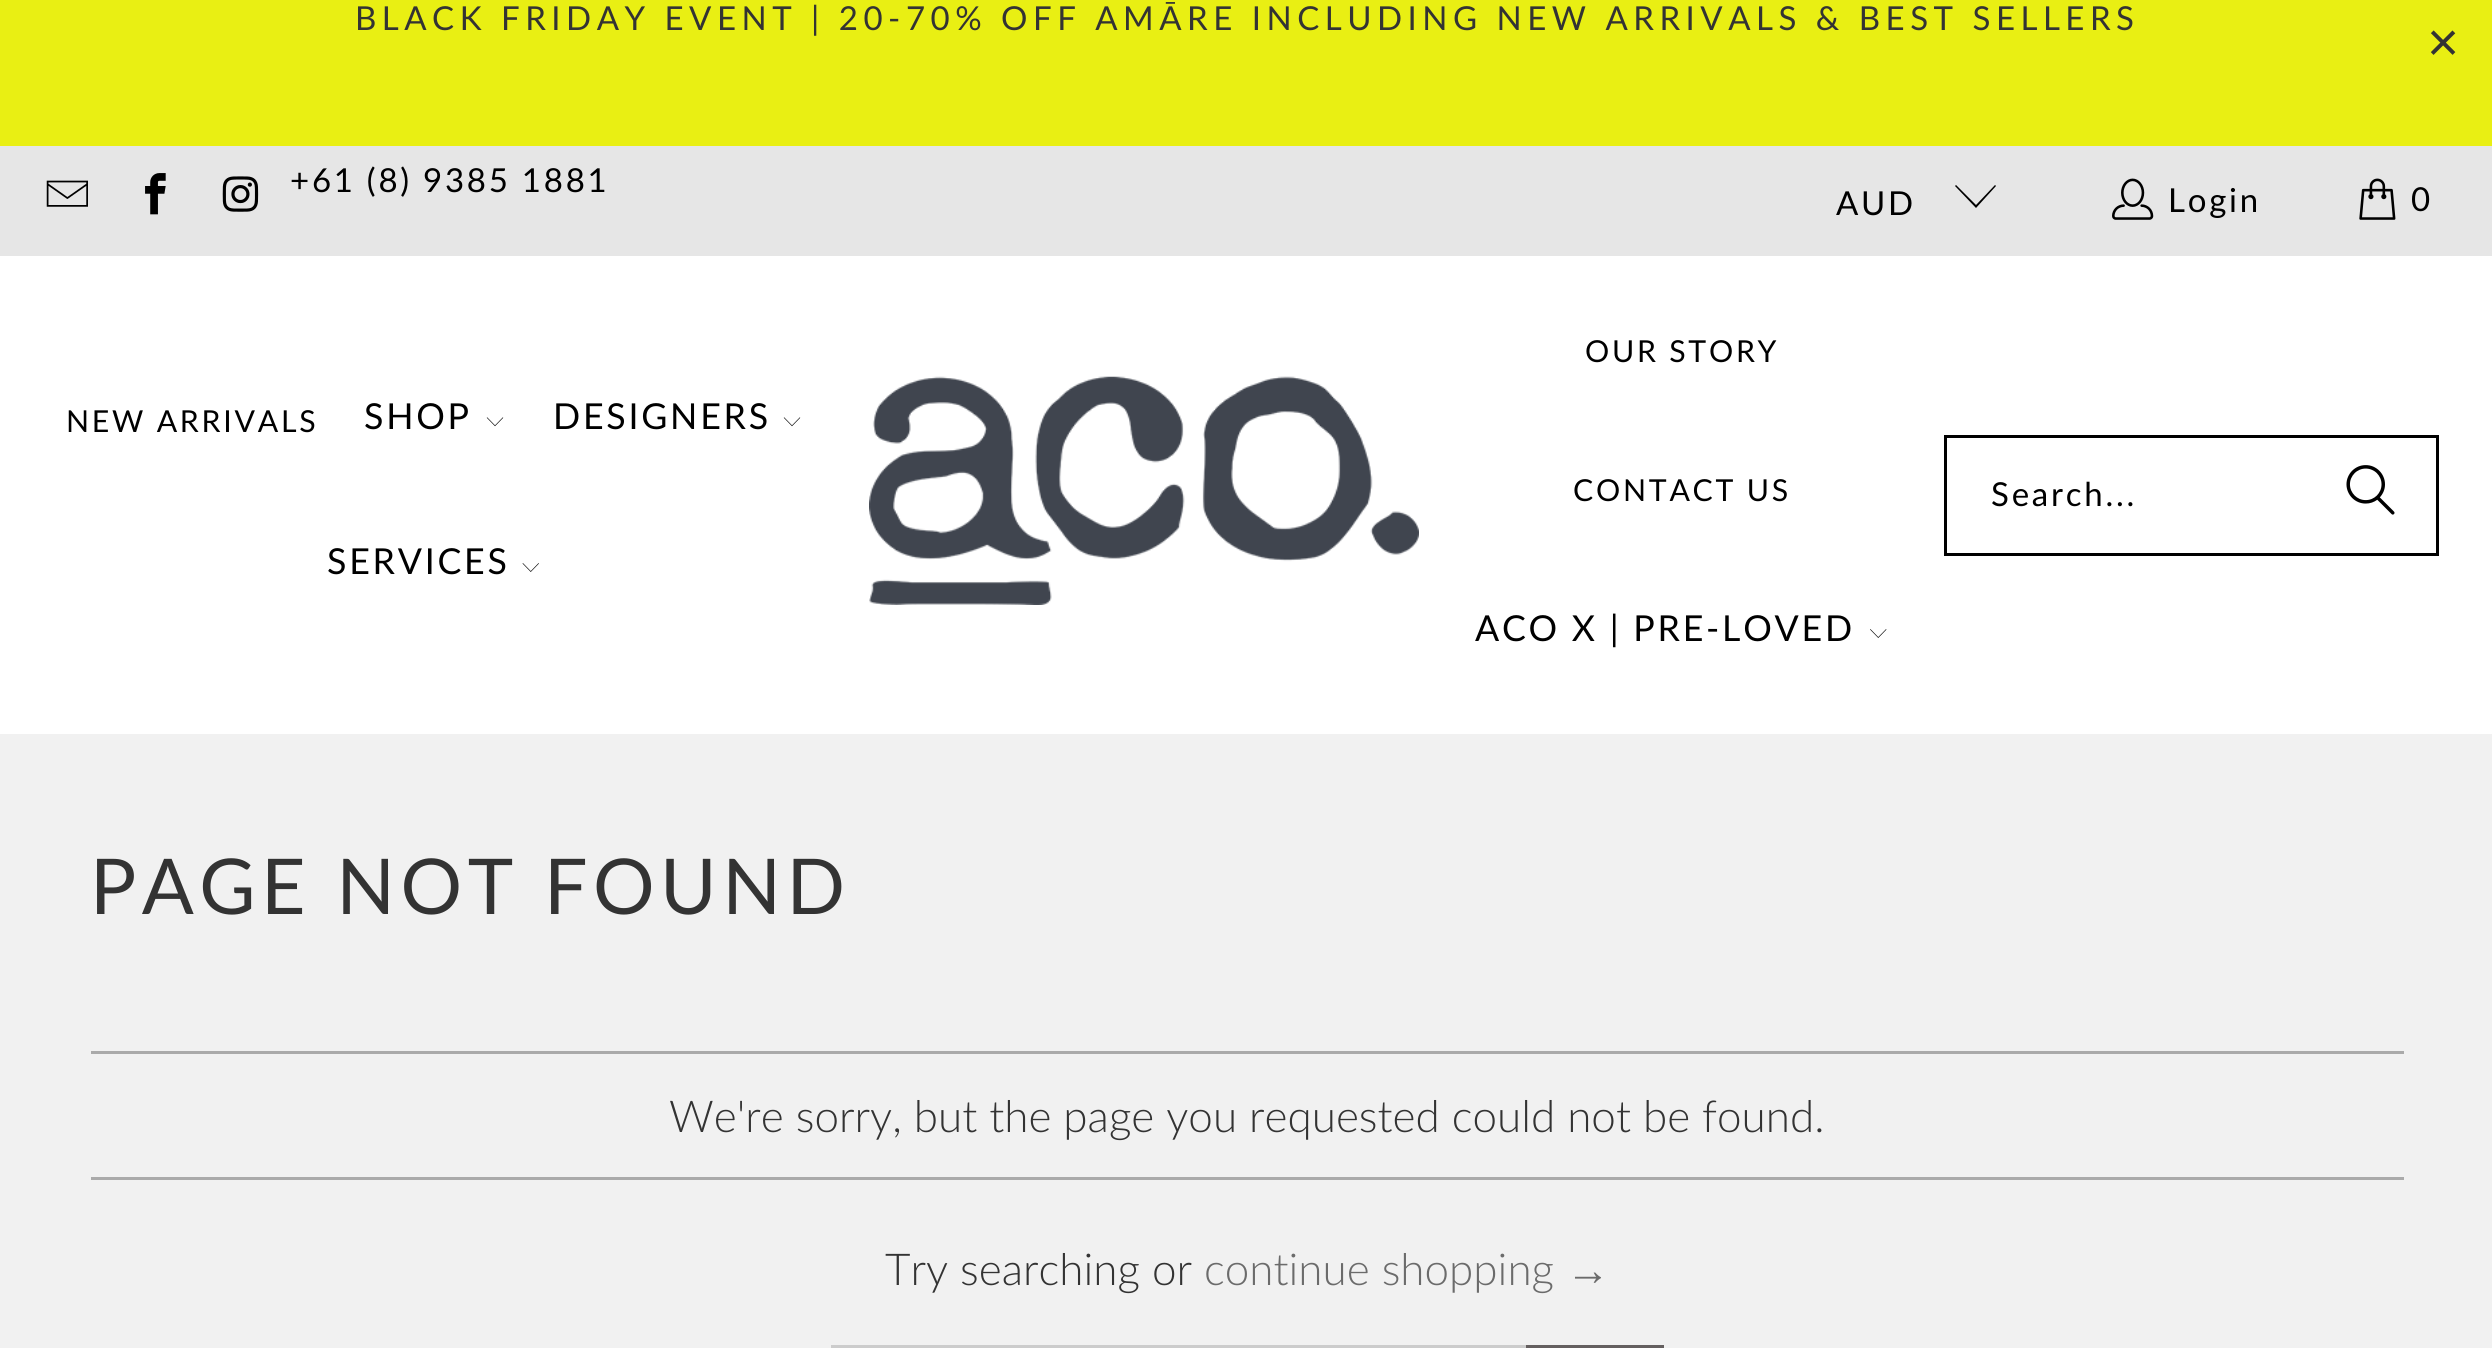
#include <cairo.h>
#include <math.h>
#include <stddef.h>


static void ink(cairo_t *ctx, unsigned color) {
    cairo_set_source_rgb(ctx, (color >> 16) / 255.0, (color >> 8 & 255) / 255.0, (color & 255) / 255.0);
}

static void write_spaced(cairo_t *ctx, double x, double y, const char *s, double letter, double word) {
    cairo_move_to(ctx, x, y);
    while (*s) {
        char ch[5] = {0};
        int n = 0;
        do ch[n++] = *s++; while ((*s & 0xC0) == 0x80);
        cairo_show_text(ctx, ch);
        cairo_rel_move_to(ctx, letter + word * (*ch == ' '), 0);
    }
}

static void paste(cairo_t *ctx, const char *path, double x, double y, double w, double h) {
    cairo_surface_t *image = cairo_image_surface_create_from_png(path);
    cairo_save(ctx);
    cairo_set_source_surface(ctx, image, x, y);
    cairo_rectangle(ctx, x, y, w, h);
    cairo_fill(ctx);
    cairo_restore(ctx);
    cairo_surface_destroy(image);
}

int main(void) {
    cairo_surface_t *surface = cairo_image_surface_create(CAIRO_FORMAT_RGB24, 2492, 1348);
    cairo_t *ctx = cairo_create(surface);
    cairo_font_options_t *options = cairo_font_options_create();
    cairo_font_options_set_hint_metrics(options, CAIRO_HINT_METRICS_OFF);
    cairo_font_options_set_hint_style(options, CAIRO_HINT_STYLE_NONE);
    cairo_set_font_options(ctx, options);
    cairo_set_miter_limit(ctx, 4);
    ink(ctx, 0xF1F1F1);
    cairo_paint(ctx);
    ink(ctx, 0xE9EF13);
    cairo_rectangle(ctx, 0, 0, 2492, 146);
    cairo_fill(ctx);
    cairo_select_font_face(ctx, "Lato", CAIRO_FONT_SLANT_NORMAL, CAIRO_FONT_WEIGHT_NORMAL);
    cairo_set_font_size(ctx, 33);
    ink(ctx, 0x333333);
    write_spaced(ctx, 355, 30, "BLACK FRIDAY EVENT | 20-70% OFF AMĀRE INCLUDING NEW ARRIVALS & BEST SELLERS", 5.5, 0);
    cairo_select_font_face(ctx, "Liberation Sans", CAIRO_FONT_SLANT_NORMAL, CAIRO_FONT_WEIGHT_NORMAL);
    cairo_set_font_size(ctx, 55);
    write_spaced(ctx, 2427, 61, "×", 5.5, 0);
    ink(ctx, 0xE6E6E6);
    cairo_rectangle(ctx, 0, 146, 2492, 110);
    cairo_fill(ctx);
    paste(ctx, "media/1.png", 46, 180, 42, 27);
    paste(ctx, "media/2.png", 145, 173, 21, 42);
    paste(ctx, "media/3.png", 222, 176, 37, 36);
    cairo_select_font_face(ctx, "Lato", CAIRO_FONT_SLANT_NORMAL, CAIRO_FONT_WEIGHT_NORMAL);
    cairo_set_font_size(ctx, 33);
    ink(ctx, 0x000000);
    write_spaced(ctx, 290, 192, "+61 (8) 9385 1881", 2.75, 0);
    write_spaced(ctx, 1836, 215, "AUD", 2.75, 0);
    cairo_new_path(ctx);
    cairo_move_to(ctx, 1976, 208);
    cairo_line_to(ctx, 1955, 186);
    cairo_line_to(ctx, 1956, 185);
    cairo_line_to(ctx, 1976, 205);
    cairo_line_to(ctx, 1995, 185);
    cairo_line_to(ctx, 1996, 186);
    cairo_close_path(ctx);
    cairo_fill(ctx);
    paste(ctx, "media/4.png", 2112, 178, 42, 42);
    write_spaced(ctx, 2168, 212, "Login", 2.75, 0);
    paste(ctx, "media/5.png", 2359, 178, 37, 42);
    write_spaced(ctx, 2411, 211, "0", 2.75, 0);
    ink(ctx, 0xFFFFFF);
    cairo_rectangle(ctx, 0, 256, 2492, 478);
    cairo_fill(ctx);
    cairo_set_font_size(ctx, 30.25);
    ink(ctx, 0x000000);
    write_spaced(ctx, 66, 432, "NEW ARRIVALS", 2.75, 0);
    cairo_set_font_size(ctx, 35.75);
    write_spaced(ctx, 364, 429, "SHOP", 2.75, 0);
    paste(ctx, "media/6.png", 486, 417, 18, 10);
    write_spaced(ctx, 553, 429, "DESIGNERS", 2.75, 0);
    paste(ctx, "media/6.png", 783, 417, 18, 10);
    write_spaced(ctx, 327, 574, "SERVICES", 2.75, 0);
    paste(ctx, "media/7.png", 522, 563, 17, 9);
    paste(ctx, "media/8.png", 869, 376, 550, 229);
    cairo_set_font_size(ctx, 30.25);
    write_spaced(ctx, 1585, 362, "OUR STORY", 2.75, 0);
    write_spaced(ctx, 1573, 501, "CONTACT US", 2.75, 0);
    cairo_set_font_size(ctx, 35.75);
    write_spaced(ctx, 1475, 641, "ACO X | PRE-LOVED", 2.75, 0);
    paste(ctx, "media/9.png", 1870, 629, 17, 9);
    cairo_rectangle(ctx, 1945.5, 436.5, 492, 118);
    cairo_set_line_width(ctx, 3);
    cairo_stroke(ctx);
    cairo_set_font_size(ctx, 33);
    write_spaced(ctx, 1991, 506, "Search...", 2.75, 0);
    paste(ctx, "media/10.png", 2346, 465, 49, 50);
    cairo_set_font_size(ctx, 77);
    ink(ctx, 0x333333);
    write_spaced(ctx, 90, 914, "PAGE NOT FOUND", 5.5, 0);
    ink(ctx, 0xAAAAAA);
    cairo_rectangle(ctx, 91, 1051, 2313, 3);
    cairo_fill(ctx);
    cairo_rectangle(ctx, 91, 1177, 2313, 3);
    cairo_fill(ctx);
    cairo_select_font_face(ctx, "Lato Light", CAIRO_FONT_SLANT_NORMAL, CAIRO_FONT_WEIGHT_NORMAL);
    cairo_set_font_size(ctx, 44);
    ink(ctx, 0x333333);
    cairo_move_to(ctx, 669, 1132);
    cairo_show_text(ctx, "We're sorry, but the page you requested could not be found.");
    cairo_move_to(ctx, 885, 1285);
    cairo_show_text(ctx, "Try searching or");
    ink(ctx, 0x6B6B6B);
    cairo_move_to(ctx, 1204, 1285);
    cairo_show_text(ctx, "continue shopping");
    cairo_select_font_face(ctx, "Liberation Sans", CAIRO_FONT_SLANT_NORMAL, CAIRO_FONT_WEIGHT_NORMAL);
    cairo_move_to(ctx, 1566, 1285);
    cairo_show_text(ctx, "→");
    cairo_rectangle(ctx, 832.5, 1346.5, 830, 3);
    ink(ctx, 0xCCCCCC);
    cairo_stroke(ctx);
    ink(ctx, 0x645F5F);
    cairo_rectangle(ctx, 1526, 1345, 138, 3);
    cairo_fill(ctx);
    cairo_surface_write_to_png(surface, "image.png");
    cairo_font_options_destroy(options);
    cairo_destroy(ctx);
    cairo_surface_destroy(surface);
    return 0;
}
